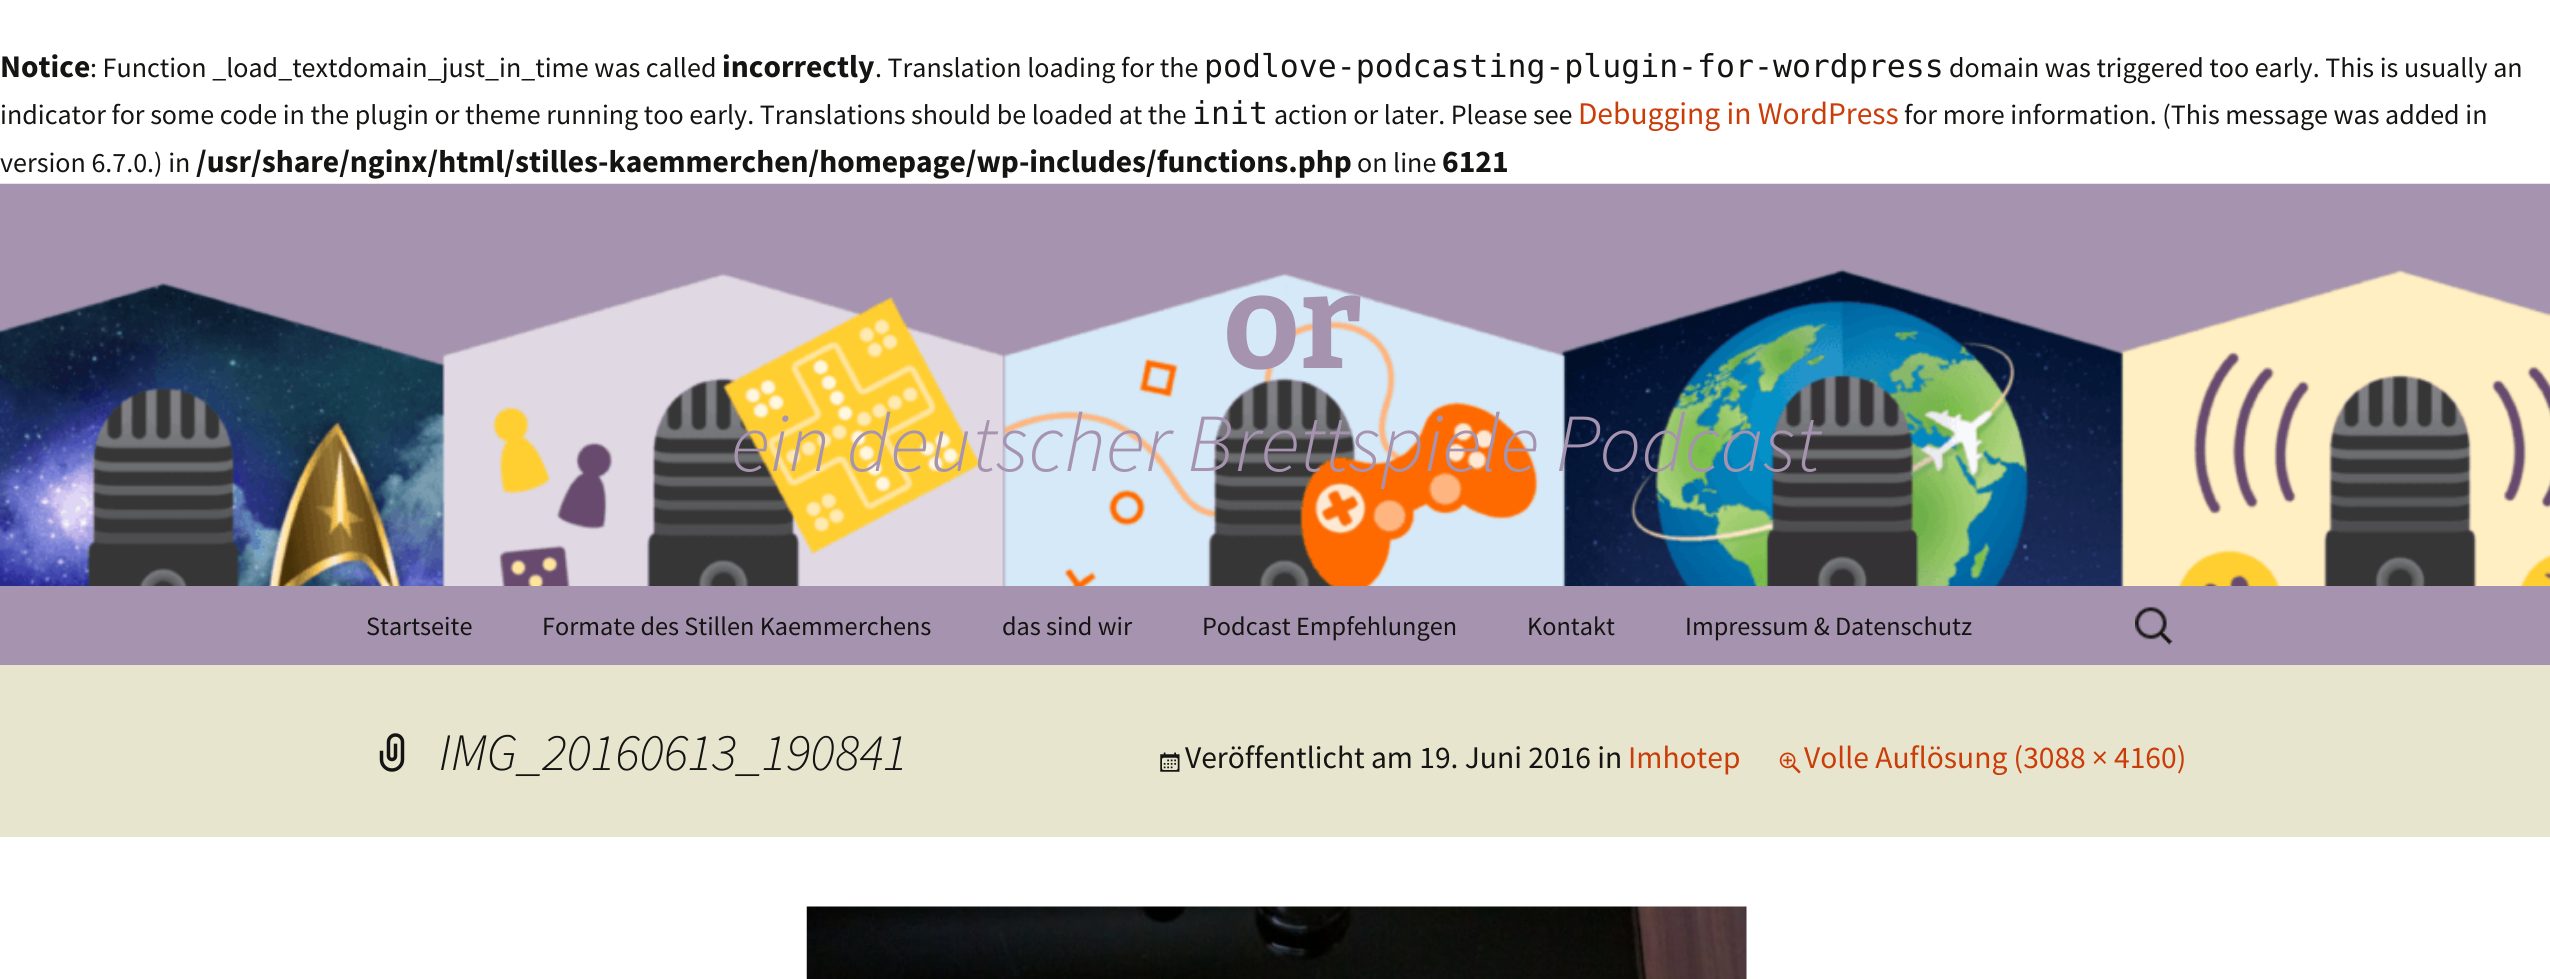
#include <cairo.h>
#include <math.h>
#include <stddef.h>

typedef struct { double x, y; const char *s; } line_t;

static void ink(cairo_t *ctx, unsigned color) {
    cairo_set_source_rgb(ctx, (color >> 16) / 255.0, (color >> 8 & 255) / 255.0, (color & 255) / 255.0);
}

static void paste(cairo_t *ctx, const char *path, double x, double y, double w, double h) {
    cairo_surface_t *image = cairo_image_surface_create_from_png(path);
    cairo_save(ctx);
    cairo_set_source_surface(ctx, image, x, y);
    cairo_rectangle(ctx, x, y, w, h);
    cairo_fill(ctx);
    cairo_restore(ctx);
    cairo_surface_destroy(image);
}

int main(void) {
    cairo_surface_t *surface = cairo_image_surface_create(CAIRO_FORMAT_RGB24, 2550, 979);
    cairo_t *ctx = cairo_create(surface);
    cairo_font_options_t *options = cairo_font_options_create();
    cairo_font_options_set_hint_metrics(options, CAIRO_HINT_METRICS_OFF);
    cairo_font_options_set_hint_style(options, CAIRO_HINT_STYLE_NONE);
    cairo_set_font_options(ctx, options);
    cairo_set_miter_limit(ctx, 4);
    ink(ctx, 0xFFFFFF);
    cairo_paint(ctx);
    cairo_select_font_face(ctx, "Source Sans Pro", CAIRO_FONT_SLANT_NORMAL, CAIRO_FONT_WEIGHT_BOLD);
    cairo_set_font_size(ctx, 31.5);
    ink(ctx, 0x141412);
    cairo_move_to(ctx, 0, 77);
    cairo_show_text(ctx, "Notice");
    cairo_select_font_face(ctx, "Source Sans Pro", CAIRO_FONT_SLANT_NORMAL, CAIRO_FONT_WEIGHT_NORMAL);
    cairo_set_font_size(ctx, 28);
    cairo_move_to(ctx, 90, 77);
    cairo_show_text(ctx, ": Function _load_textdomain_just_in_time was called");
    cairo_select_font_face(ctx, "Source Sans Pro", CAIRO_FONT_SLANT_NORMAL, CAIRO_FONT_WEIGHT_BOLD);
    cairo_set_font_size(ctx, 31.5);
    cairo_move_to(ctx, 722, 77);
    cairo_show_text(ctx, "incorrectly");
    cairo_select_font_face(ctx, "Source Sans Pro", CAIRO_FONT_SLANT_NORMAL, CAIRO_FONT_WEIGHT_NORMAL);
    cairo_set_font_size(ctx, 28);
    cairo_move_to(ctx, 875, 77);
    cairo_show_text(ctx, ". Translation loading for the");
    cairo_select_font_face(ctx, "DejaVu Sans Mono", CAIRO_FONT_SLANT_NORMAL, CAIRO_FONT_WEIGHT_NORMAL);
    cairo_set_font_size(ctx, 31.5);
    cairo_move_to(ctx, 1204, 77);
    cairo_show_text(ctx, "podlove-podcasting-plugin-for-wordpress");
    cairo_select_font_face(ctx, "Source Sans Pro", CAIRO_FONT_SLANT_NORMAL, CAIRO_FONT_WEIGHT_NORMAL);
    cairo_set_font_size(ctx, 28);
    cairo_move_to(ctx, 1949, 77);
    cairo_show_text(ctx, "domain was triggered too early. This is usually an");
    cairo_move_to(ctx, 0, 124);
    cairo_show_text(ctx, "indicator for some code in the plugin or theme running too early. Translations should be loaded at the");
    cairo_select_font_face(ctx, "DejaVu Sans Mono", CAIRO_FONT_SLANT_NORMAL, CAIRO_FONT_WEIGHT_NORMAL);
    cairo_set_font_size(ctx, 31.5);
    cairo_move_to(ctx, 1192, 124);
    cairo_show_text(ctx, "init");
    cairo_select_font_face(ctx, "Source Sans Pro", CAIRO_FONT_SLANT_NORMAL, CAIRO_FONT_WEIGHT_NORMAL);
    cairo_set_font_size(ctx, 28);
    cairo_move_to(ctx, 1274, 124);
    cairo_show_text(ctx, "action or later. Please see");
    cairo_set_font_size(ctx, 31.5);
    ink(ctx, 0xCA3C08);
    cairo_move_to(ctx, 1578, 124);
    cairo_show_text(ctx, "Debugging in WordPress");
    cairo_set_font_size(ctx, 28);
    ink(ctx, 0x141412);
    cairo_move_to(ctx, 1904, 124);
    cairo_show_text(ctx, "for more information. (This message was added in");
    cairo_move_to(ctx, 0, 172);
    cairo_show_text(ctx, "version 6.7.0.) in");
    cairo_select_font_face(ctx, "Source Sans Pro", CAIRO_FONT_SLANT_NORMAL, CAIRO_FONT_WEIGHT_BOLD);
    cairo_set_font_size(ctx, 31.5);
    cairo_move_to(ctx, 196, 172);
    cairo_show_text(ctx, "/usr/share/nginx/html/stilles-kaemmerchen/homepage/wp-includes/functions.php");
    cairo_select_font_face(ctx, "Source Sans Pro", CAIRO_FONT_SLANT_NORMAL, CAIRO_FONT_WEIGHT_NORMAL);
    cairo_set_font_size(ctx, 28);
    cairo_move_to(ctx, 1357, 172);
    cairo_show_text(ctx, "on line");
    cairo_select_font_face(ctx, "Source Sans Pro", CAIRO_FONT_SLANT_NORMAL, CAIRO_FONT_WEIGHT_BOLD);
    cairo_set_font_size(ctx, 31.5);
    cairo_move_to(ctx, 1442, 172);
    cairo_show_text(ctx, "6121");
    paste(ctx, "media/1.png", 0, 183, 2550, 403);
    cairo_select_font_face(ctx, "Bitter Thin", CAIRO_FONT_SLANT_NORMAL, CAIRO_FONT_WEIGHT_NORMAL);
    cairo_set_font_size(ctx, 133);
    ink(ctx, 0xA693AF);
    cairo_move_to(ctx, 1223, 368);
    cairo_show_text(ctx, "or");
    cairo_select_font_face(ctx, "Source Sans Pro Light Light", CAIRO_FONT_SLANT_ITALIC, CAIRO_FONT_WEIGHT_NORMAL);
    cairo_set_font_size(ctx, 82.5);
    cairo_move_to(ctx, 731, 471);
    cairo_show_text(ctx, "ein deutscher Brettspiele Podcast");
    cairo_rectangle(ctx, 0, 586, 2550, 79);
    cairo_fill(ctx);
    cairo_select_font_face(ctx, "Source Sans Pro", CAIRO_FONT_SLANT_NORMAL, CAIRO_FONT_WEIGHT_NORMAL);
    cairo_set_font_size(ctx, 26.25);
    ink(ctx, 0x141412);
    {
        static const line_t items[] = {
            {366, 635, "Startseite"},
            {542, 635, "Formate des Stillen Kaemmerchens"},
            {1002, 635, "das sind wir"},
            {1202, 635, "Podcast Empfehlungen"},
            {1527, 635, "Kontakt"},
            {1685, 635, "Impressum & Datenschutz"},
        };
        for (size_t i = 0; i < sizeof items / sizeof *items; i++) {
            cairo_move_to(ctx, items[i].x, items[i].y);
            cairo_show_text(ctx, items[i].s);
        }
    }
    paste(ctx, "media/2.png", 2135, 606, 38, 39);
    ink(ctx, 0xE8E5CE);
    cairo_rectangle(ctx, 0, 665, 2550, 172);
    cairo_fill(ctx);
    paste(ctx, "media/3.png", 379, 733, 26, 39);
    cairo_select_font_face(ctx, "Source Sans Pro Light Light", CAIRO_FONT_SLANT_ITALIC, CAIRO_FONT_WEIGHT_NORMAL);
    cairo_set_font_size(ctx, 52.5);
    ink(ctx, 0x141412);
    cairo_move_to(ctx, 439, 770);
    cairo_show_text(ctx, "IMG_20160613_190841");
    paste(ctx, "media/4.png", 1160, 752, 20, 20);
    cairo_select_font_face(ctx, "Source Sans Pro", CAIRO_FONT_SLANT_NORMAL, CAIRO_FONT_WEIGHT_NORMAL);
    cairo_set_font_size(ctx, 31.5);
    cairo_move_to(ctx, 1185, 768);
    cairo_show_text(ctx, "Veröffentlicht am 19. Juni 2016 in");
    ink(ctx, 0xCA3C08);
    cairo_move_to(ctx, 1628, 768);
    cairo_show_text(ctx, "Imhotep");
    paste(ctx, "media/5.png", 1779, 752, 22, 22);
    cairo_move_to(ctx, 1804, 768);
    cairo_show_text(ctx, "Volle Auflösung (3088 × 4160)");
    paste(ctx, "media/6.png", 806, 906, 941, 73);
    cairo_surface_write_to_png(surface, "image.png");
    cairo_font_options_destroy(options);
    cairo_destroy(ctx);
    cairo_surface_destroy(surface);
    return 0;
}
